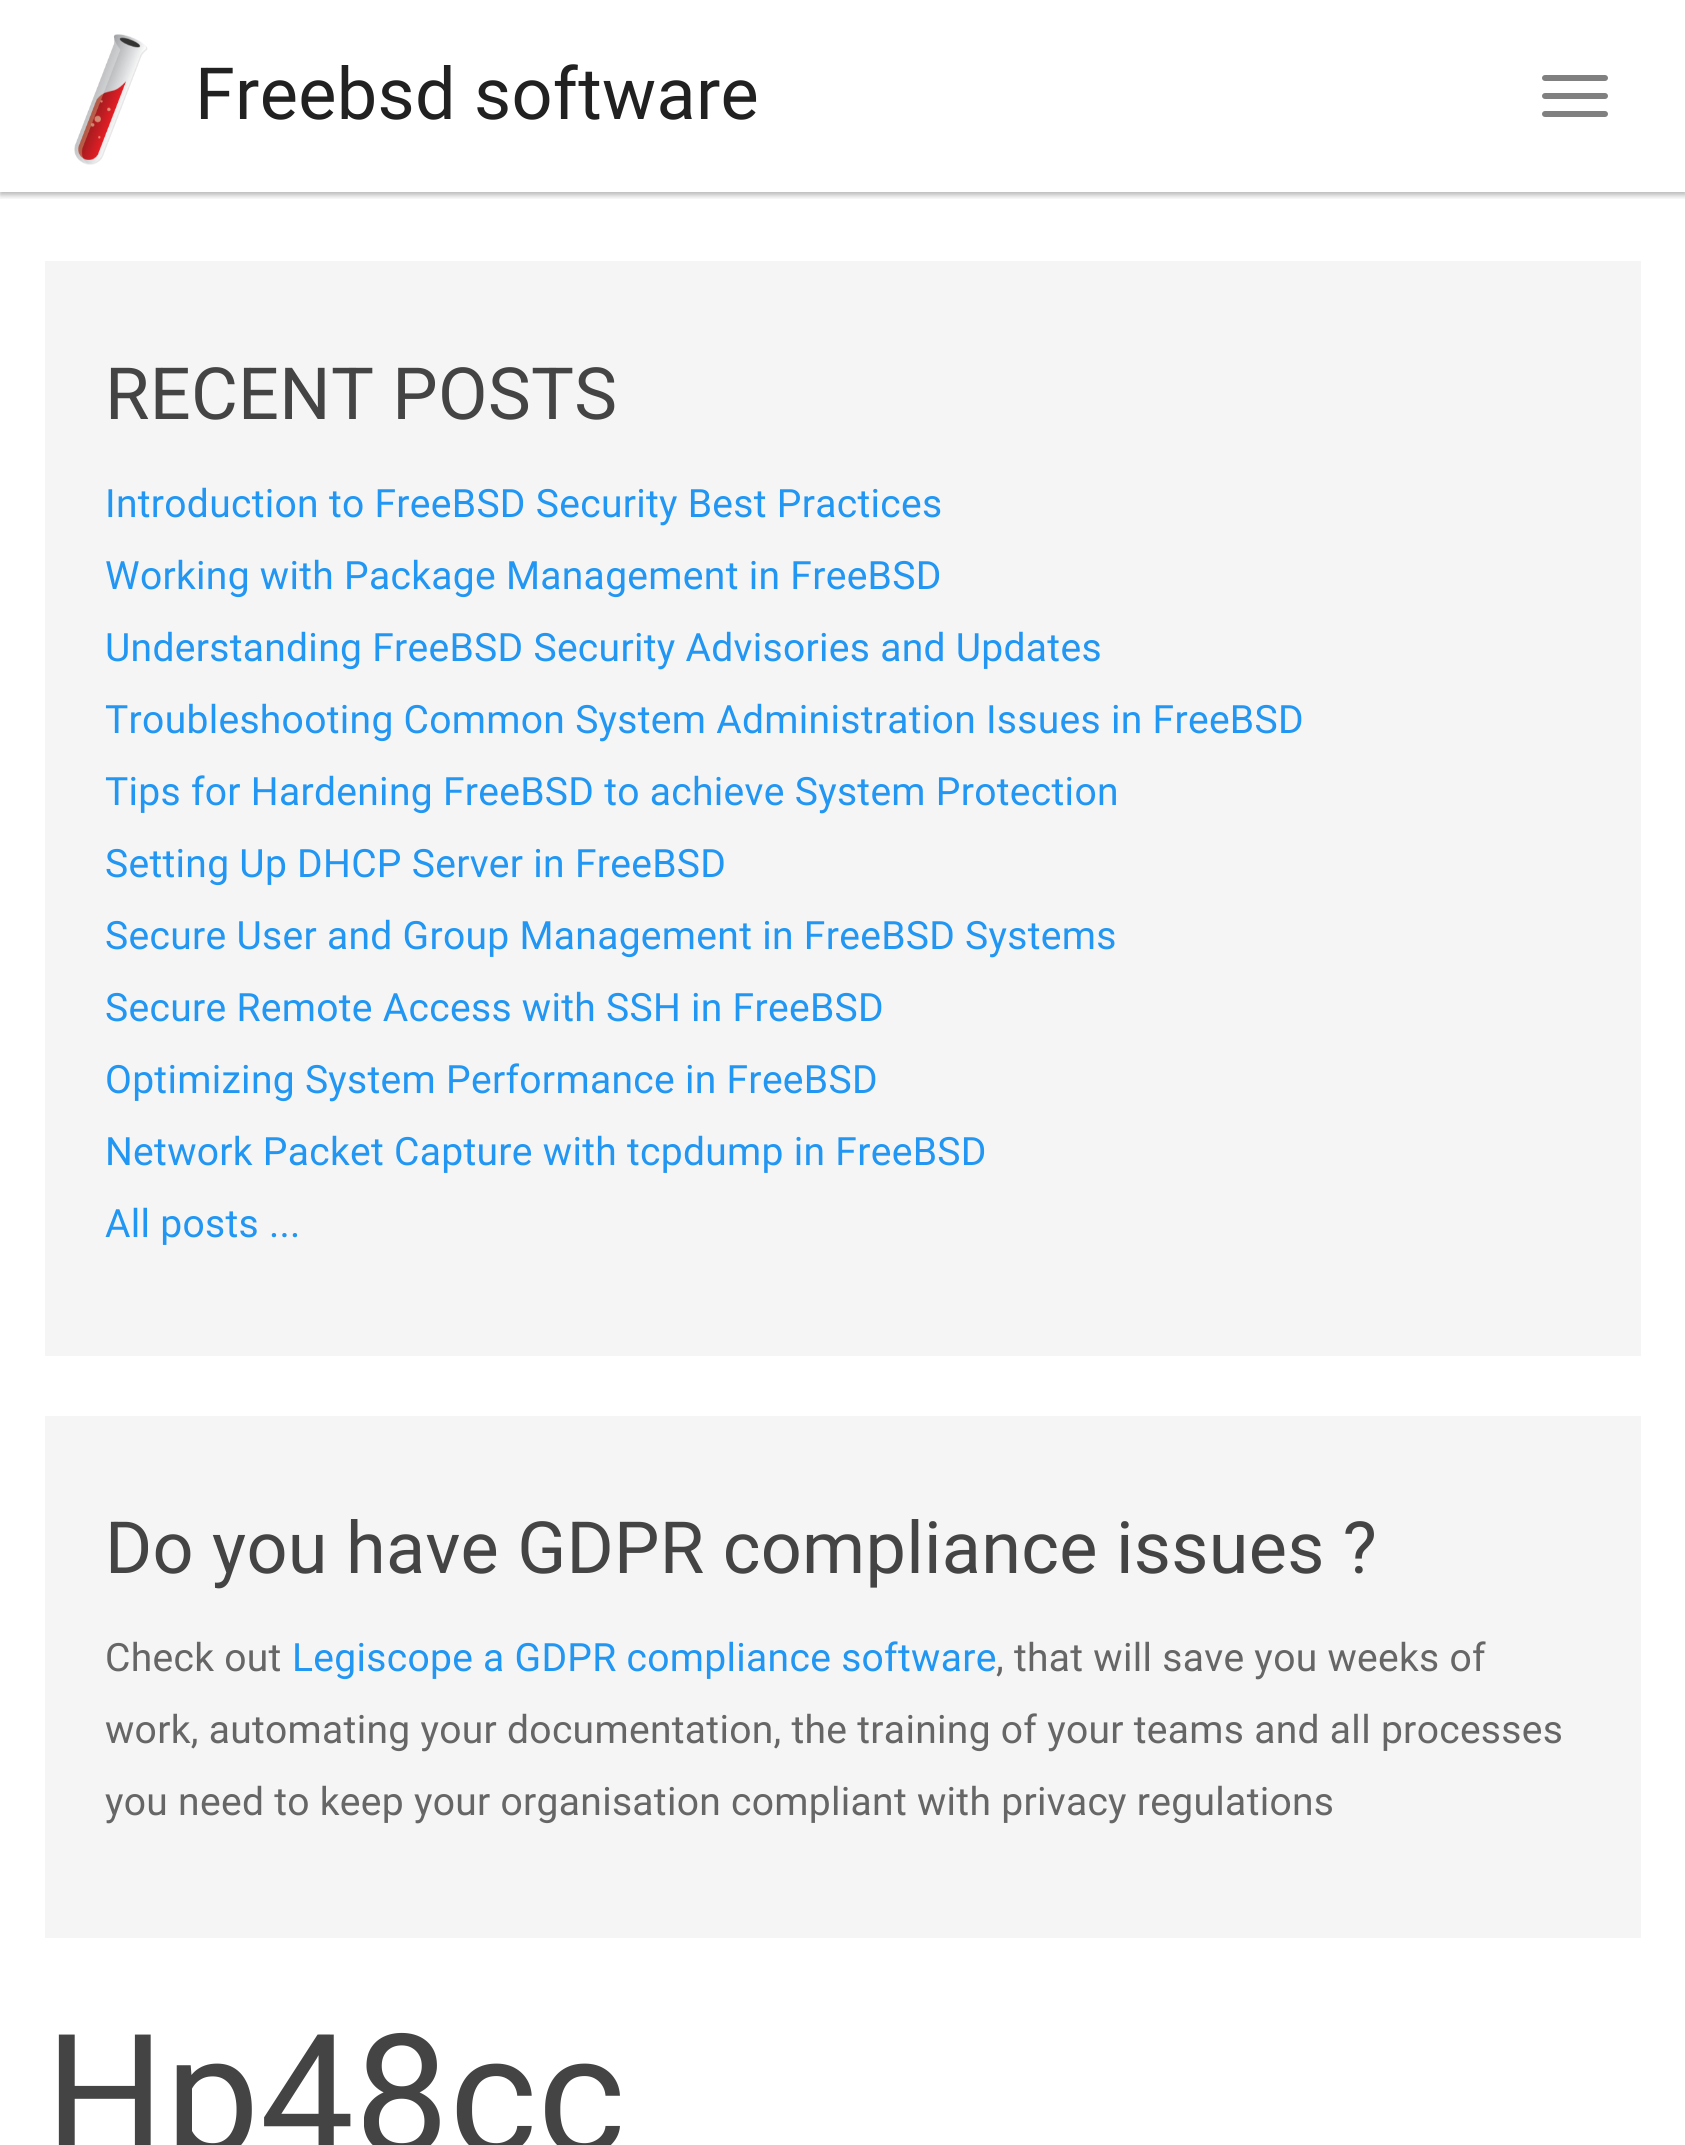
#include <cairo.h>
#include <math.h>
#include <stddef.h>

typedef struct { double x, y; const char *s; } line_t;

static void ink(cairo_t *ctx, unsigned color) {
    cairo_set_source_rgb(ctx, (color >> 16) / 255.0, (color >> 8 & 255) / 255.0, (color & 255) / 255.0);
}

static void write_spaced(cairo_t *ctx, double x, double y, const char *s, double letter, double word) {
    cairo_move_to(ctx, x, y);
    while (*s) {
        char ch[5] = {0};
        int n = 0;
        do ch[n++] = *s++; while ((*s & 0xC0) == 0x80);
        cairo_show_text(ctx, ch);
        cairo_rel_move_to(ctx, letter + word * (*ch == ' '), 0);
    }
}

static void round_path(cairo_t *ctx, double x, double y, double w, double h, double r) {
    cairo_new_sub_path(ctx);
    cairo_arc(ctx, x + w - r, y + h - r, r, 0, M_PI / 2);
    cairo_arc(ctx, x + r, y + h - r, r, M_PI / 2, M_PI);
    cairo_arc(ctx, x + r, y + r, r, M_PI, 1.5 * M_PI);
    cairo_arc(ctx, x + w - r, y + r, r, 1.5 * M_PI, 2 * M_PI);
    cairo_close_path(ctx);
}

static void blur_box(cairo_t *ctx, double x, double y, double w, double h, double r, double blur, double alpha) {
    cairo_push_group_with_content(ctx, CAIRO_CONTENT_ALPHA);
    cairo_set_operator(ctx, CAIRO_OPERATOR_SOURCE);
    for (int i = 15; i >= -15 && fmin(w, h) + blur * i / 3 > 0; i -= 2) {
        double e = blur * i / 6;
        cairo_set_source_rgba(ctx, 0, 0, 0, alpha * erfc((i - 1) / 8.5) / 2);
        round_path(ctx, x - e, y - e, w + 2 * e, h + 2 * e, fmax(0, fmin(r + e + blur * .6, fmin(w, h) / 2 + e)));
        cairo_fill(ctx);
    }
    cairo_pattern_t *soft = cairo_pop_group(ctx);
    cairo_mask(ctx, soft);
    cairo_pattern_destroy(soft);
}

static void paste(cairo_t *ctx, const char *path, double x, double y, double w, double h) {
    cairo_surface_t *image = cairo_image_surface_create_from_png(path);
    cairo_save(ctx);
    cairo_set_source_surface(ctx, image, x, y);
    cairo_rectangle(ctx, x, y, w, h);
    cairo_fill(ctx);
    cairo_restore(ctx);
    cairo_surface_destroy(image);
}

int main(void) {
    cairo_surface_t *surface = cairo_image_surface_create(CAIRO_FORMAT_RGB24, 1685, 2145);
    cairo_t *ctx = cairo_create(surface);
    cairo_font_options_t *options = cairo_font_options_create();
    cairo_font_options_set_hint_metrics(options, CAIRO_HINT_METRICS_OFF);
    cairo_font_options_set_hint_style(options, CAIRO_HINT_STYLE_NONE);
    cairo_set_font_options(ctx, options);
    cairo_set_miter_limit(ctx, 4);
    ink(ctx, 0xFFFFFF);
    cairo_paint(ctx);
    cairo_save(ctx);
    cairo_rectangle(ctx, 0, 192, 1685, 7);
    cairo_clip(ctx);
    ink(ctx, 0x000000);
    blur_box(ctx, 0, 3, 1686, 192, 0, 3, 0.3);
    cairo_restore(ctx);
    paste(ctx, "media/1.png", 74, 34, 74, 131);
    cairo_select_font_face(ctx, "Roboto", CAIRO_FONT_SLANT_NORMAL, CAIRO_FONT_WEIGHT_NORMAL);
    cairo_set_font_size(ctx, 72);
    ink(ctx, 0x212121);
    write_spaced(ctx, 195, 119, "Freebsd software", 0.3, 0);
    ink(ctx, 0x808080);
    round_path(ctx, 1542, 75, 66, 6, 3);
    cairo_fill(ctx);
    round_path(ctx, 1542, 93, 66, 6, 3);
    cairo_fill(ctx);
    round_path(ctx, 1542, 111, 66, 6, 3);
    cairo_fill(ctx);
    ink(ctx, 0xF5F5F5);
    cairo_rectangle(ctx, 45, 261, 1596, 1095);
    cairo_fill(ctx);
    ink(ctx, 0x444444);
    write_spaced(ctx, 105, 419, "RECENT POSTS", 0.3, 0);
    cairo_set_font_size(ctx, 39);
    ink(ctx, 0x2196F3);
    {
        static const line_t items[] = {
            {105, 517, "Introduction to FreeBSD Security Best Practices"},
            {105, 589, "Working with Package Management in FreeBSD"},
            {105, 661, "Understanding FreeBSD Security Advisories and Updates"},
            {105, 733, "Troubleshooting Common System Administration Issues in FreeBSD"},
            {105, 805, "Tips for Hardening FreeBSD to achieve System Protection"},
            {105, 877, "Setting Up DHCP Server in FreeBSD"},
            {105, 949, "Secure User and Group Management in FreeBSD Systems"},
            {105, 1021, "Secure Remote Access with SSH in FreeBSD"},
            {105, 1093, "Optimizing System Performance in FreeBSD"},
            {105, 1165, "Network Packet Capture with tcpdump in FreeBSD"},
            {105, 1237, "All posts ..."},
        };
        for (size_t i = 0; i < sizeof items / sizeof *items; i++) {
            write_spaced(ctx, items[i].x, items[i].y, items[i].s, 0.3, 0);
        }
    }
    ink(ctx, 0xF5F5F5);
    cairo_rectangle(ctx, 45, 1416, 1596, 522);
    cairo_fill(ctx);
    cairo_set_font_size(ctx, 72);
    ink(ctx, 0x444444);
    write_spaced(ctx, 105, 1573, "Do you have GDPR compliance issues ?", 0.3, 0);
    cairo_set_font_size(ctx, 39);
    ink(ctx, 0x666666);
    write_spaced(ctx, 105, 1671, "Check out", 0.3, 0);
    ink(ctx, 0x2196F3);
    write_spaced(ctx, 292, 1671, "Legiscope a GDPR compliance software", 0.3, 0);
    ink(ctx, 0x666666);
    {
        static const line_t items[] = {
            {996, 1671, ", that will save you weeks of"},
            {105, 1743, "work, automating your documentation, the training of your teams and all processes"},
            {105, 1815, "you need to keep your organisation compliant with privacy regulations"},
        };
        for (size_t i = 0; i < sizeof items / sizeof *items; i++) {
            write_spaced(ctx, items[i].x, items[i].y, items[i].s, 0.3, 0);
        }
    }
    cairo_set_font_size(ctx, 168);
    ink(ctx, 0x444444);
    write_spaced(ctx, 45, 2154, "Hp48cc", 0.3, 0);
    cairo_surface_write_to_png(surface, "image.png");
    cairo_font_options_destroy(options);
    cairo_destroy(ctx);
    cairo_surface_destroy(surface);
    return 0;
}
